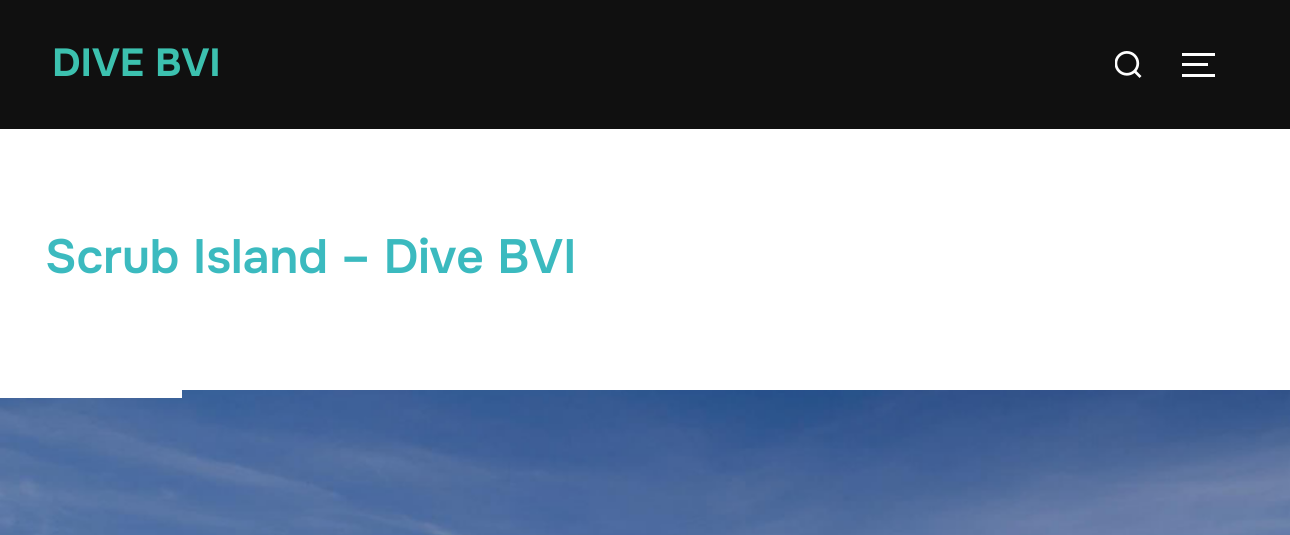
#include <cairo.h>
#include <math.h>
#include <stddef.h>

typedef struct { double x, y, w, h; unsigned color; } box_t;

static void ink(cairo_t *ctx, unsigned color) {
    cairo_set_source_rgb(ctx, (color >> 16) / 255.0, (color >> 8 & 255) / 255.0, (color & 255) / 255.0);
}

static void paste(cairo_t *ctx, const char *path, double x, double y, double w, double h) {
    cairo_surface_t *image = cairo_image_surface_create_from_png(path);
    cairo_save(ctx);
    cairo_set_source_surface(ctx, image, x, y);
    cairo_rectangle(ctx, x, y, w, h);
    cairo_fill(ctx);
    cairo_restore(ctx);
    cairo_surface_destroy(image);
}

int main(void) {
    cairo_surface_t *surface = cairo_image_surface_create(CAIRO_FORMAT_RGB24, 1290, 535);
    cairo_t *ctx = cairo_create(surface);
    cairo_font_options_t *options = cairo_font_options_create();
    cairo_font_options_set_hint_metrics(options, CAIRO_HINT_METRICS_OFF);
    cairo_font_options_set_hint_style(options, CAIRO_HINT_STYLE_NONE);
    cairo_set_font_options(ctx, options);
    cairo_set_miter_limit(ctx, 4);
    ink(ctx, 0xFFFFFF);
    cairo_paint(ctx);
    ink(ctx, 0x101010);
    cairo_rectangle(ctx, 0, 0, 1290, 129);
    cairo_fill(ctx);
    cairo_select_font_face(ctx, "Onest", CAIRO_FONT_SLANT_NORMAL, CAIRO_FONT_WEIGHT_BOLD);
    cairo_set_font_size(ctx, 39);
    ink(ctx, 0x3CC1AF);
    cairo_move_to(ctx, 52, 76);
    cairo_show_text(ctx, "DIVE BVI");
    paste(ctx, "media/1.png", 1115, 51, 27, 27);
    {
        static const box_t items[] = {
            {1182, 53, 33, 3, 0xFFFFFF},
            {1182, 63, 26, 3, 0xFFFFFF},
            {1182, 74, 33, 3, 0xFFFFFF},
        };
        for (size_t i = 0; i < sizeof items / sizeof *items; i++) {
            ink(ctx, items[i].color);
            cairo_rectangle(ctx, items[i].x, items[i].y, items[i].w, items[i].h);
            cairo_fill(ctx);
        }
    }
    cairo_select_font_face(ctx, "Onest SemiBold", CAIRO_FONT_SLANT_NORMAL, CAIRO_FONT_WEIGHT_NORMAL);
    cairo_set_font_size(ctx, 48);
    ink(ctx, 0x3BBABF);
    cairo_move_to(ctx, 45, 273);
    cairo_show_text(ctx, "Scrub Island – Dive BVI");
    paste(ctx, "media/2.png", 0, 390, 1290, 145);
    ink(ctx, 0xFFFFFF);
    cairo_rectangle(ctx, 0, 390, 182, 8);
    cairo_fill(ctx);
    cairo_surface_write_to_png(surface, "image.png");
    cairo_font_options_destroy(options);
    cairo_destroy(ctx);
    cairo_surface_destroy(surface);
    return 0;
}
